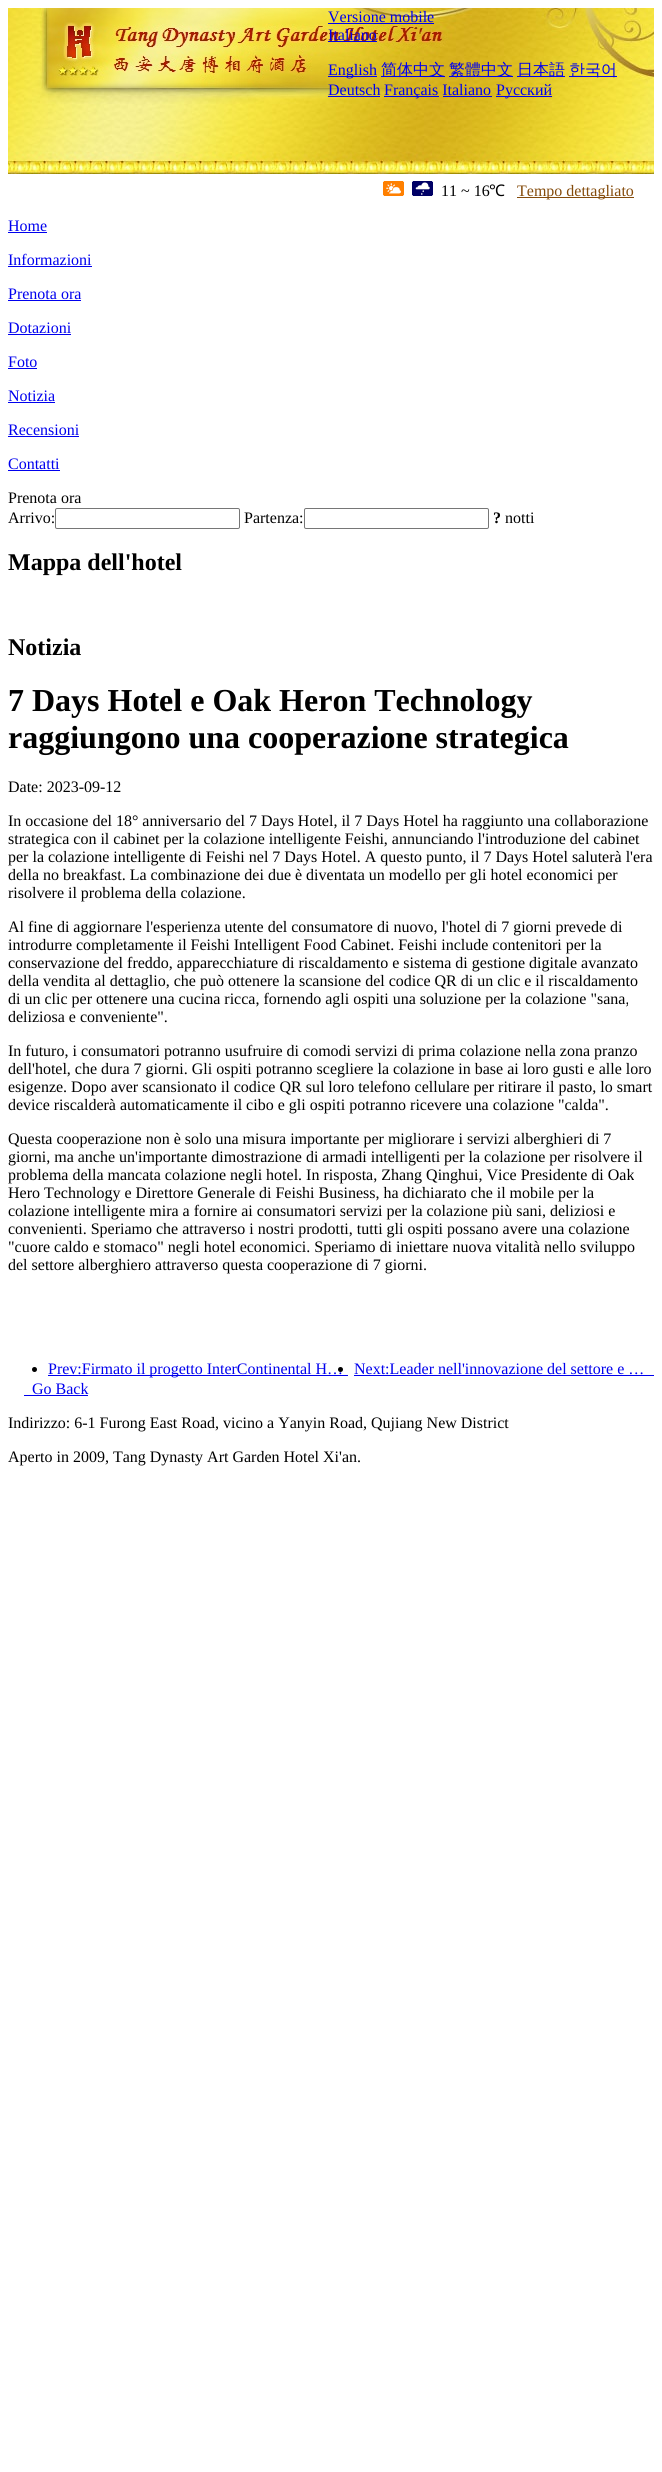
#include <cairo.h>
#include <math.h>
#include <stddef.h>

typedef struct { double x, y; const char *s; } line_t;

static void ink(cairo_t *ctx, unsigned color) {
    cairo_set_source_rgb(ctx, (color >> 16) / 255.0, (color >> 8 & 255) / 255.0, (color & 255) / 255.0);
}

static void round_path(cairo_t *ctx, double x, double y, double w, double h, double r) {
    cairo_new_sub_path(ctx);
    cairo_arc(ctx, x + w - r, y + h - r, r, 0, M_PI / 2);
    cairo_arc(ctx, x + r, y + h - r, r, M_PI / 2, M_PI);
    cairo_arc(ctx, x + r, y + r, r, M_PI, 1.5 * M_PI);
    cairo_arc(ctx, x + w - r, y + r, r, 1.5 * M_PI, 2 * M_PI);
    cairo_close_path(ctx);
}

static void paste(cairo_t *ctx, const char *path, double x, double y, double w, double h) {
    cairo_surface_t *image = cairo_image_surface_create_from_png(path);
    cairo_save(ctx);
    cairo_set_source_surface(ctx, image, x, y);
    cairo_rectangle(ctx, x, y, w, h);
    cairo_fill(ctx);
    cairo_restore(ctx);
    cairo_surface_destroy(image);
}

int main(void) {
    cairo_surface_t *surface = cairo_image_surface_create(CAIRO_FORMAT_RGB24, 662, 2472);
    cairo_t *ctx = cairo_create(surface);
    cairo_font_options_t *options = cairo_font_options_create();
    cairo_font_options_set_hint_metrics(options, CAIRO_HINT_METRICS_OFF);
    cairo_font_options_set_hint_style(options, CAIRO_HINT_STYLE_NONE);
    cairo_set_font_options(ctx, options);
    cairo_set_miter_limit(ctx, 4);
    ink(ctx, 0xFFFFFF);
    cairo_paint(ctx);
    paste(ctx, "media/1.png", 8, 8, 646, 166);
    cairo_select_font_face(ctx, "Liberation Serif", CAIRO_FONT_SLANT_NORMAL, CAIRO_FONT_WEIGHT_NORMAL);
    cairo_set_font_size(ctx, 16);
    ink(ctx, 0x0000EE);
    cairo_move_to(ctx, 328, 22);
    cairo_show_text(ctx, "Versione mobile");
    cairo_rectangle(ctx, 328, 23, 106, 1);
    cairo_fill(ctx);
    cairo_move_to(ctx, 328, 40);
    cairo_show_text(ctx, "Italiano");
    cairo_rectangle(ctx, 328, 41, 49, 1);
    cairo_fill(ctx);
    cairo_rectangle(ctx, 328, 76, 49, 1);
    cairo_fill(ctx);
    cairo_move_to(ctx, 328, 75);
    cairo_show_text(ctx, "English");
    cairo_rectangle(ctx, 381, 76, 64, 1);
    cairo_fill(ctx);
    cairo_select_font_face(ctx, "WenQuanYi Zen Hei Medium", CAIRO_FONT_SLANT_NORMAL, CAIRO_FONT_WEIGHT_NORMAL);
    cairo_move_to(ctx, 381, 75);
    cairo_show_text(ctx, "简体中文");
    cairo_rectangle(ctx, 449, 76, 64, 1);
    cairo_fill(ctx);
    cairo_move_to(ctx, 449, 75);
    cairo_show_text(ctx, "繁體中文");
    cairo_rectangle(ctx, 517, 76, 48, 1);
    cairo_fill(ctx);
    cairo_move_to(ctx, 517, 75);
    cairo_show_text(ctx, "日本語");
    cairo_rectangle(ctx, 569, 76, 48, 1);
    cairo_fill(ctx);
    cairo_move_to(ctx, 569, 75);
    cairo_show_text(ctx, "한국어");
    cairo_select_font_face(ctx, "Liberation Serif", CAIRO_FONT_SLANT_NORMAL, CAIRO_FONT_WEIGHT_NORMAL);
    cairo_move_to(ctx, 328, 95);
    cairo_show_text(ctx, "Deutsch");
    cairo_rectangle(ctx, 328, 96, 52, 1);
    cairo_fill(ctx);
    cairo_rectangle(ctx, 384, 96, 55, 1);
    cairo_fill(ctx);
    cairo_move_to(ctx, 384, 95);
    cairo_show_text(ctx, "Français Italiano");
    cairo_rectangle(ctx, 496, 96, 56, 1);
    cairo_fill(ctx);
    cairo_move_to(ctx, 496, 95);
    cairo_show_text(ctx, "Русский");
    cairo_rectangle(ctx, 443, 96, 49, 1);
    cairo_fill(ctx);
    paste(ctx, "media/2.png", 383, 181, 21, 15);
    paste(ctx, "media/3.png", 412, 181, 21, 15);
    ink(ctx, 0x000000);
    cairo_move_to(ctx, 441, 196);
    cairo_show_text(ctx, "11 ~ 16");
    cairo_select_font_face(ctx, "Noto Sans", CAIRO_FONT_SLANT_NORMAL, CAIRO_FONT_WEIGHT_NORMAL);
    cairo_move_to(ctx, 489, 196);
    cairo_show_text(ctx, "℃");
    ink(ctx, 0x844B0B);
    cairo_rectangle(ctx, 517, 197, 117, 1);
    cairo_fill(ctx);
    cairo_select_font_face(ctx, "Liberation Serif", CAIRO_FONT_SLANT_NORMAL, CAIRO_FONT_WEIGHT_NORMAL);
    cairo_move_to(ctx, 517, 196);
    cairo_show_text(ctx, "Tempo dettagliato");
    ink(ctx, 0x0000EE);
    cairo_move_to(ctx, 8, 231);
    cairo_show_text(ctx, "Home");
    cairo_rectangle(ctx, 8, 232, 39, 1);
    cairo_fill(ctx);
    cairo_move_to(ctx, 8, 265);
    cairo_show_text(ctx, "Informazioni");
    cairo_rectangle(ctx, 8, 266, 84, 1);
    cairo_fill(ctx);
    cairo_move_to(ctx, 8, 299);
    cairo_show_text(ctx, "Prenota ora");
    cairo_rectangle(ctx, 8, 300, 73, 1);
    cairo_fill(ctx);
    cairo_move_to(ctx, 8, 333);
    cairo_show_text(ctx, "Dotazioni");
    cairo_rectangle(ctx, 8, 334, 63, 1);
    cairo_fill(ctx);
    cairo_move_to(ctx, 8, 367);
    cairo_show_text(ctx, "Foto");
    cairo_rectangle(ctx, 8, 368, 29, 1);
    cairo_fill(ctx);
    cairo_move_to(ctx, 8, 401);
    cairo_show_text(ctx, "Notizia");
    cairo_rectangle(ctx, 8, 402, 47, 1);
    cairo_fill(ctx);
    cairo_move_to(ctx, 8, 435);
    cairo_show_text(ctx, "Recensioni");
    cairo_rectangle(ctx, 8, 436, 71, 1);
    cairo_fill(ctx);
    cairo_move_to(ctx, 8, 469);
    cairo_show_text(ctx, "Contatti");
    cairo_rectangle(ctx, 8, 470, 52, 1);
    cairo_fill(ctx);
    ink(ctx, 0x000000);
    cairo_move_to(ctx, 8, 503);
    cairo_show_text(ctx, "Prenota ora");
    cairo_move_to(ctx, 8, 523);
    cairo_show_text(ctx, "Arrivo:");
    round_path(ctx, 55.5, 508.5, 184, 20, 1.5);
    ink(ctx, 0x767676);
    cairo_set_line_width(ctx, 1);
    cairo_stroke(ctx);
    ink(ctx, 0x000000);
    cairo_move_to(ctx, 244, 523);
    cairo_show_text(ctx, "Partenza:");
    round_path(ctx, 304.5, 508.5, 184, 20, 1.5);
    ink(ctx, 0x767676);
    cairo_stroke(ctx);
    cairo_select_font_face(ctx, "Liberation Serif", CAIRO_FONT_SLANT_NORMAL, CAIRO_FONT_WEIGHT_BOLD);
    ink(ctx, 0x000000);
    cairo_move_to(ctx, 493, 523);
    cairo_show_text(ctx, "?");
    cairo_select_font_face(ctx, "Liberation Serif", CAIRO_FONT_SLANT_NORMAL, CAIRO_FONT_WEIGHT_NORMAL);
    cairo_move_to(ctx, 505, 523);
    cairo_show_text(ctx, "notti");
    cairo_select_font_face(ctx, "Liberation Serif", CAIRO_FONT_SLANT_NORMAL, CAIRO_FONT_WEIGHT_BOLD);
    cairo_set_font_size(ctx, 24);
    cairo_move_to(ctx, 8, 570);
    cairo_show_text(ctx, "Mappa dell'hotel");
    cairo_move_to(ctx, 8, 655);
    cairo_show_text(ctx, "Notizia");
    cairo_set_font_size(ctx, 32);
    cairo_move_to(ctx, 8, 711);
    cairo_show_text(ctx, "7 Days Hotel e Oak Heron Technology");
    cairo_move_to(ctx, 8, 748);
    cairo_show_text(ctx, "raggiungono una cooperazione strategica");
    cairo_select_font_face(ctx, "Liberation Serif", CAIRO_FONT_SLANT_NORMAL, CAIRO_FONT_WEIGHT_NORMAL);
    cairo_set_font_size(ctx, 16);
    {
        static const line_t items[] = {
            {8, 792, "Date: 2023-09-12"},
            {8, 826, "In occasione del 18° anniversario del 7 Days Hotel, il 7 Days Hotel ha raggiunto una collaborazione"},
            {8, 844, "strategica con il cabinet per la colazione intelligente Feishi, annunciando l'introduzione del cabinet"},
            {8, 862, "per la colazione intelligente di Feishi nel 7 Days Hotel. A questo punto, il 7 Days Hotel saluterà l'era"},
            {8, 880, "della no breakfast. La combinazione dei due è diventata un modello per gli hotel economici per"},
            {8, 898, "risolvere il problema della colazione."},
            {8, 932, "Al fine di aggiornare l'esperienza utente del consumatore di nuovo, l'hotel di 7 giorni prevede di"},
            {8, 950, "introdurre completamente il Feishi Intelligent Food Cabinet. Feishi include contenitori per la"},
            {8, 968, "conservazione del freddo, apparecchiature di riscaldamento e sistema di gestione digitale avanzato"},
            {8, 986, "della vendita al dettaglio, che può ottenere la scansione del codice QR di un clic e il riscaldamento"},
            {8, 1004, "di un clic per ottenere una cucina ricca, fornendo agli ospiti una soluzione per la colazione \"sana,"},
            {8, 1022, "deliziosa e conveniente\"."},
            {8, 1056, "In futuro, i consumatori potranno usufruire di comodi servizi di prima colazione nella zona pranzo"},
            {8, 1074, "dell'hotel, che dura 7 giorni. Gli ospiti potranno scegliere la colazione in base ai loro gusti e alle loro"},
            {8, 1092, "esigenze. Dopo aver scansionato il codice QR sul loro telefono cellulare per ritirare il pasto, lo smart"},
            {8, 1110, "device riscalderà automaticamente il cibo e gli ospiti potranno ricevere una colazione \"calda\"."},
            {8, 1144, "Questa cooperazione non è solo una misura importante per migliorare i servizi alberghieri di 7"},
            {8, 1162, "giorni, ma anche un'importante dimostrazione di armadi intelligenti per la colazione per risolvere il"},
            {8, 1180, "problema della mancata colazione negli hotel. In risposta, Zhang Qinghui, Vice Presidente di Oak"},
            {8, 1198, "Hero Technology e Direttore Generale di Feishi Business, ha dichiarato che il mobile per la"},
            {8, 1216, "colazione intelligente mira a fornire ai consumatori servizi per la colazione più sani, deliziosi e"},
            {8, 1234, "convenienti. Speriamo che attraverso i nostri prodotti, tutti gli ospiti possano avere una colazione"},
            {8, 1252, "\"cuore caldo e stomaco\" negli hotel economici. Speriamo di iniettare nuova vitalità nello sviluppo"},
            {8, 1270, "del settore alberghiero attraverso questa cooperazione di 7 giorni."},
        };
        for (size_t i = 0; i < sizeof items / sizeof *items; i++) {
            cairo_move_to(ctx, items[i].x, items[i].y);
            cairo_show_text(ctx, items[i].s);
        }
    }
    cairo_new_path(ctx);
    cairo_arc(ctx, 34.5, 1369.5, 2.5, 0, 2 * M_PI);
    cairo_fill(ctx);
    ink(ctx, 0x0000EE);
    cairo_rectangle(ctx, 48, 1375, 300, 1);
    cairo_fill(ctx);
    ink(ctx, 0x000000);
    cairo_arc(ctx, 340.5, 1369.5, 2.5, 0, 2 * M_PI);
    cairo_fill(ctx);
    ink(ctx, 0x0000EE);
    cairo_move_to(ctx, 48, 1374);
    cairo_show_text(ctx, "Prev:Firmato il progetto InterContinental H…");
    cairo_move_to(ctx, 354, 1374);
    cairo_show_text(ctx, "Next:Leader nell'innovazione del settore e …");
    cairo_rectangle(ctx, 354, 1375, 300, 1);
    cairo_fill(ctx);
    cairo_move_to(ctx, 32, 1394);
    cairo_show_text(ctx, "Go Back");
    cairo_rectangle(ctx, 24, 1395, 64, 1);
    cairo_fill(ctx);
    ink(ctx, 0x000000);
    cairo_move_to(ctx, 8, 1428);
    cairo_show_text(ctx, "Indirizzo: 6-1 Furong East Road, vicino a Yanyin Road, Qujiang New District");
    cairo_move_to(ctx, 8, 1462);
    cairo_show_text(ctx, "Aperto in 2009, Tang Dynasty Art Garden Hotel Xi'an.");
    cairo_surface_write_to_png(surface, "image.png");
    cairo_font_options_destroy(options);
    cairo_destroy(ctx);
    cairo_surface_destroy(surface);
    return 0;
}
